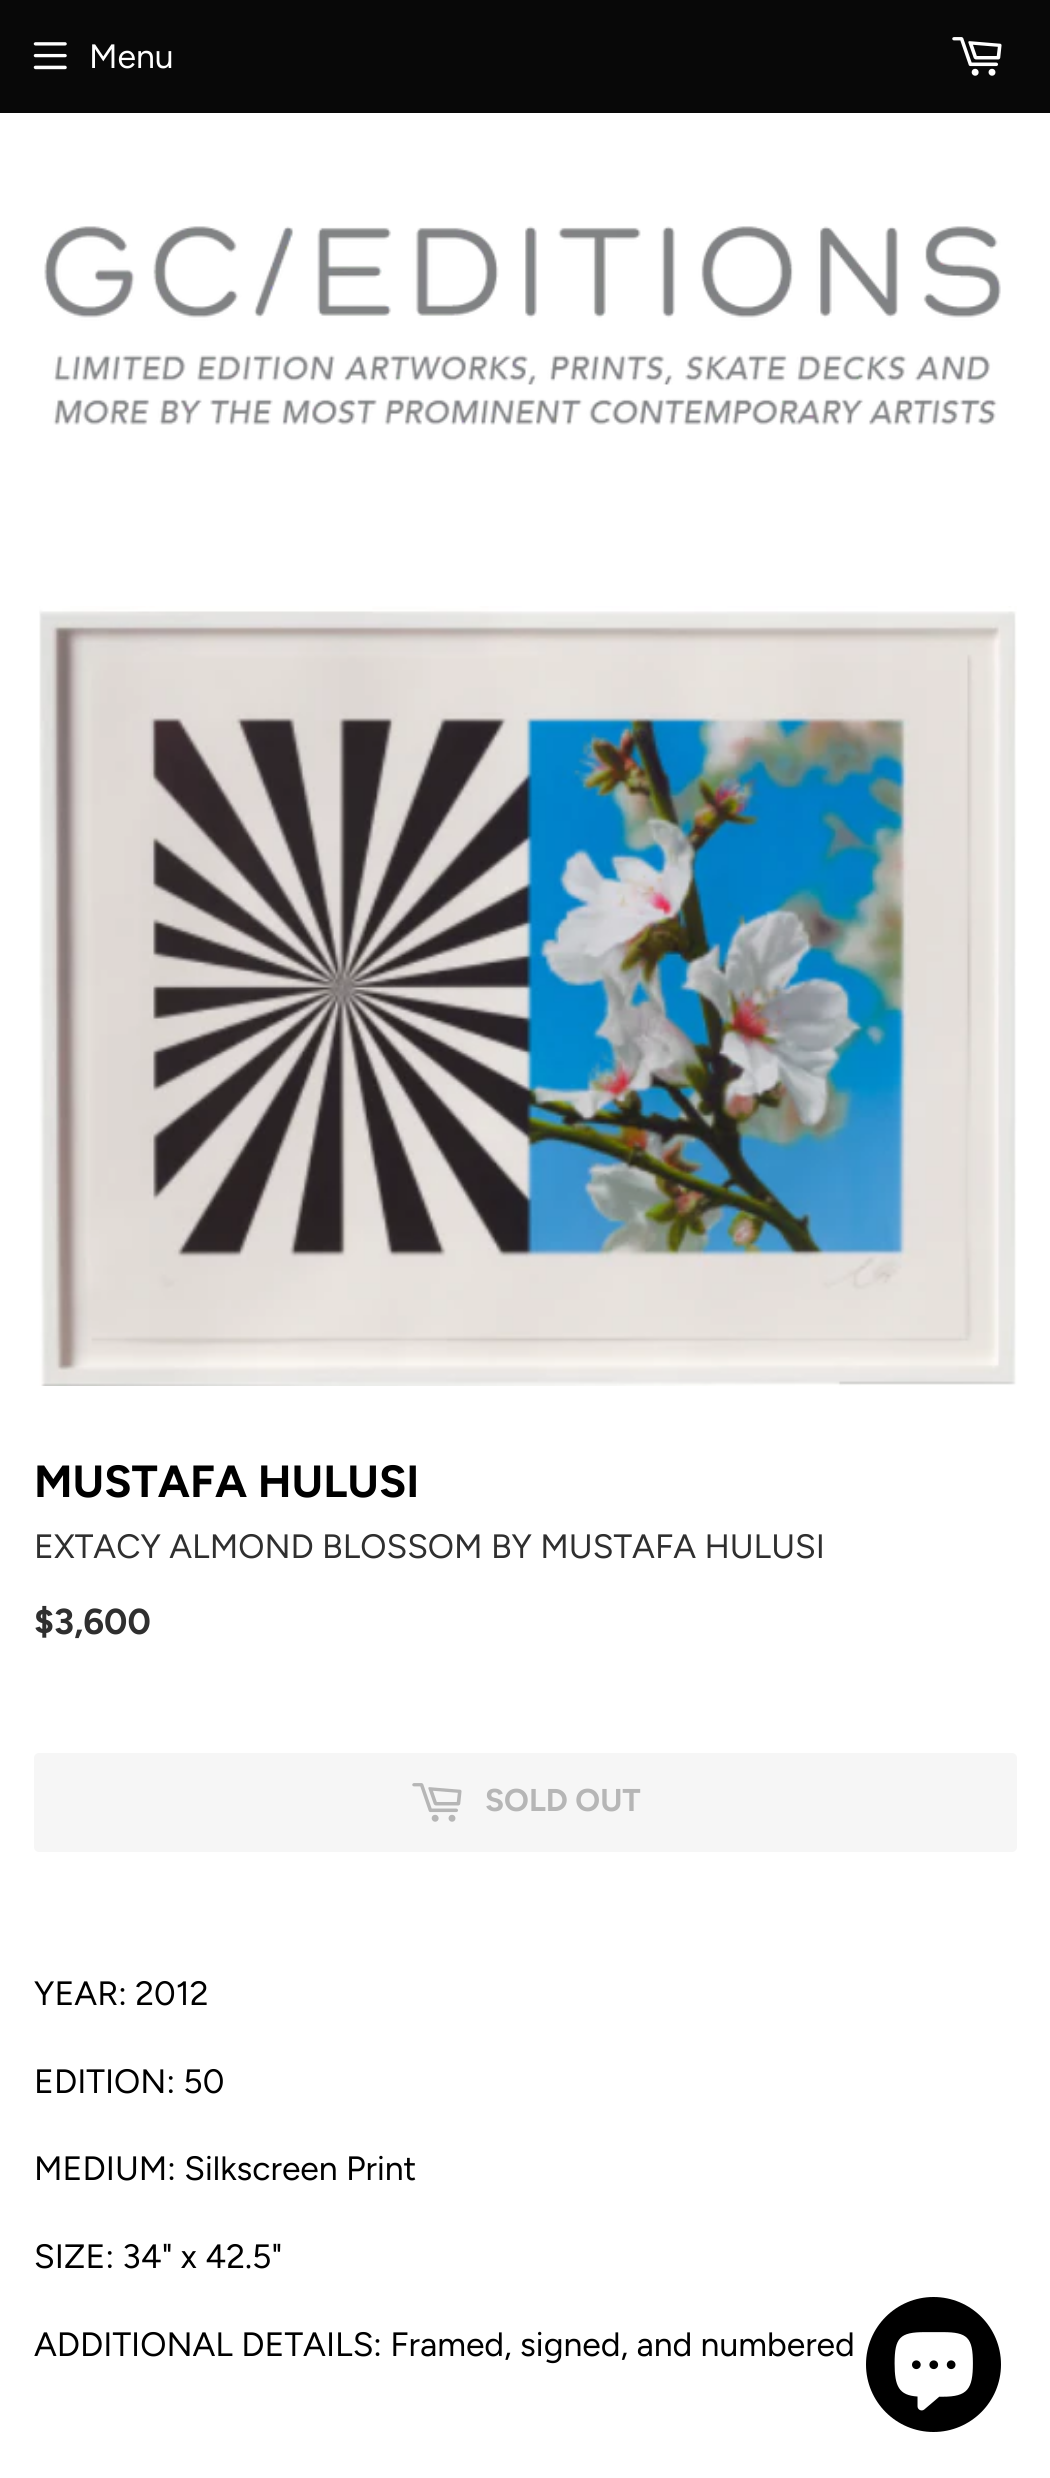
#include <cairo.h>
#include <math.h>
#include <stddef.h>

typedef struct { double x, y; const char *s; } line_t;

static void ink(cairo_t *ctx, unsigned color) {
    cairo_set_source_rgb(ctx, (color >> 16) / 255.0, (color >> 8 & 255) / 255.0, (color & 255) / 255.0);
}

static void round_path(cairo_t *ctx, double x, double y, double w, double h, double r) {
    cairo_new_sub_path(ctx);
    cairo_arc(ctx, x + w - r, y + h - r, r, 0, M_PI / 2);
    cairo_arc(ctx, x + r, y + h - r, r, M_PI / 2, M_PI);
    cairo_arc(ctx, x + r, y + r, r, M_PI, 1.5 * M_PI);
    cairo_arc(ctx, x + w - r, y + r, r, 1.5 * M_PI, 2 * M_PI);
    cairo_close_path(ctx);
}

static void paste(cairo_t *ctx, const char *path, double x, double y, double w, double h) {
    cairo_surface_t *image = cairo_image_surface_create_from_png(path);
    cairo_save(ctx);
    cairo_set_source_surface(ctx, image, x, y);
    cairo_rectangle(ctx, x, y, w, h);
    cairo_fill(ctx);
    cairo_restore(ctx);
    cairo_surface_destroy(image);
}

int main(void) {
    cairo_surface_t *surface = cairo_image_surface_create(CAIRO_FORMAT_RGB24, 1050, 2478);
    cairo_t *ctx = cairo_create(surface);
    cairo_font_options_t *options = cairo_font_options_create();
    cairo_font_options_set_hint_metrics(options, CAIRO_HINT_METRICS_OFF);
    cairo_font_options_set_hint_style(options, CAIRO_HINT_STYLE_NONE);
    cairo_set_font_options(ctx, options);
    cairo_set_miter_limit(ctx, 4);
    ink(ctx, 0xFFFFFF);
    cairo_paint(ctx);
    ink(ctx, 0x080808);
    cairo_rectangle(ctx, 0, 0, 1050, 113);
    cairo_fill(ctx);
    paste(ctx, "media/1.png", 33, 42, 34, 28);
    cairo_select_font_face(ctx, "Figtree", CAIRO_FONT_SLANT_NORMAL, CAIRO_FONT_WEIGHT_NORMAL);
    cairo_set_font_size(ctx, 33.75);
    ink(ctx, 0xFFFFFF);
    cairo_move_to(ctx, 89, 68);
    cairo_show_text(ctx, "Menu");
    paste(ctx, "media/2.png", 952, 37, 50, 39);
    paste(ctx, "media/3.png", 44, 226, 957, 199);
    paste(ctx, "media/4.png", 39, 606, 978, 780);
    cairo_select_font_face(ctx, "Figtree", CAIRO_FONT_SLANT_NORMAL, CAIRO_FONT_WEIGHT_BOLD);
    cairo_set_font_size(ctx, 45);
    ink(ctx, 0x000000);
    cairo_move_to(ctx, 34, 1497);
    cairo_show_text(ctx, "MUSTAFA HULUSI");
    cairo_select_font_face(ctx, "Figtree", CAIRO_FONT_SLANT_NORMAL, CAIRO_FONT_WEIGHT_NORMAL);
    cairo_set_font_size(ctx, 33.75);
    ink(ctx, 0x2F2F2F);
    cairo_move_to(ctx, 34, 1558);
    cairo_show_text(ctx, "EXTACY ALMOND BLOSSOM BY MUSTAFA HULUSI");
    cairo_select_font_face(ctx, "Figtree", CAIRO_FONT_SLANT_NORMAL, CAIRO_FONT_WEIGHT_BOLD);
    cairo_set_font_size(ctx, 36);
    cairo_move_to(ctx, 34, 1634);
    cairo_show_text(ctx, "$3,600");
    ink(ctx, 0xF6F6F6);
    round_path(ctx, 34, 1753, 983, 99, 5);
    cairo_fill(ctx);
    paste(ctx, "media/5.png", 412, 1783, 50, 39);
    cairo_set_font_size(ctx, 31.5);
    ink(ctx, 0xB6B6B6);
    cairo_move_to(ctx, 485, 1811);
    cairo_show_text(ctx, "SOLD OUT");
    cairo_select_font_face(ctx, "Figtree", CAIRO_FONT_SLANT_NORMAL, CAIRO_FONT_WEIGHT_NORMAL);
    cairo_set_font_size(ctx, 33.75);
    ink(ctx, 0x000000);
    {
        static const line_t items[] = {
            {34, 2005, "YEAR: 2012"},
            {34, 2093, "EDITION: 50"},
            {34, 2180, "MEDIUM: Silkscreen Print"},
            {34, 2268, "SIZE: 34\" x 42.5\""},
            {34, 2356, "ADDITIONAL DETAILS: Framed, signed, and numbered"},
        };
        for (size_t i = 0; i < sizeof items / sizeof *items; i++) {
            cairo_move_to(ctx, items[i].x, items[i].y);
            cairo_show_text(ctx, items[i].s);
        }
    }
    cairo_new_path(ctx);
    cairo_arc(ctx, 933.5, 2364.5, 67.5, 0, 2 * M_PI);
    cairo_fill(ctx);
    paste(ctx, "media/6.png", 894, 2332, 79, 79);
    cairo_surface_write_to_png(surface, "image.png");
    cairo_font_options_destroy(options);
    cairo_destroy(ctx);
    cairo_surface_destroy(surface);
    return 0;
}
